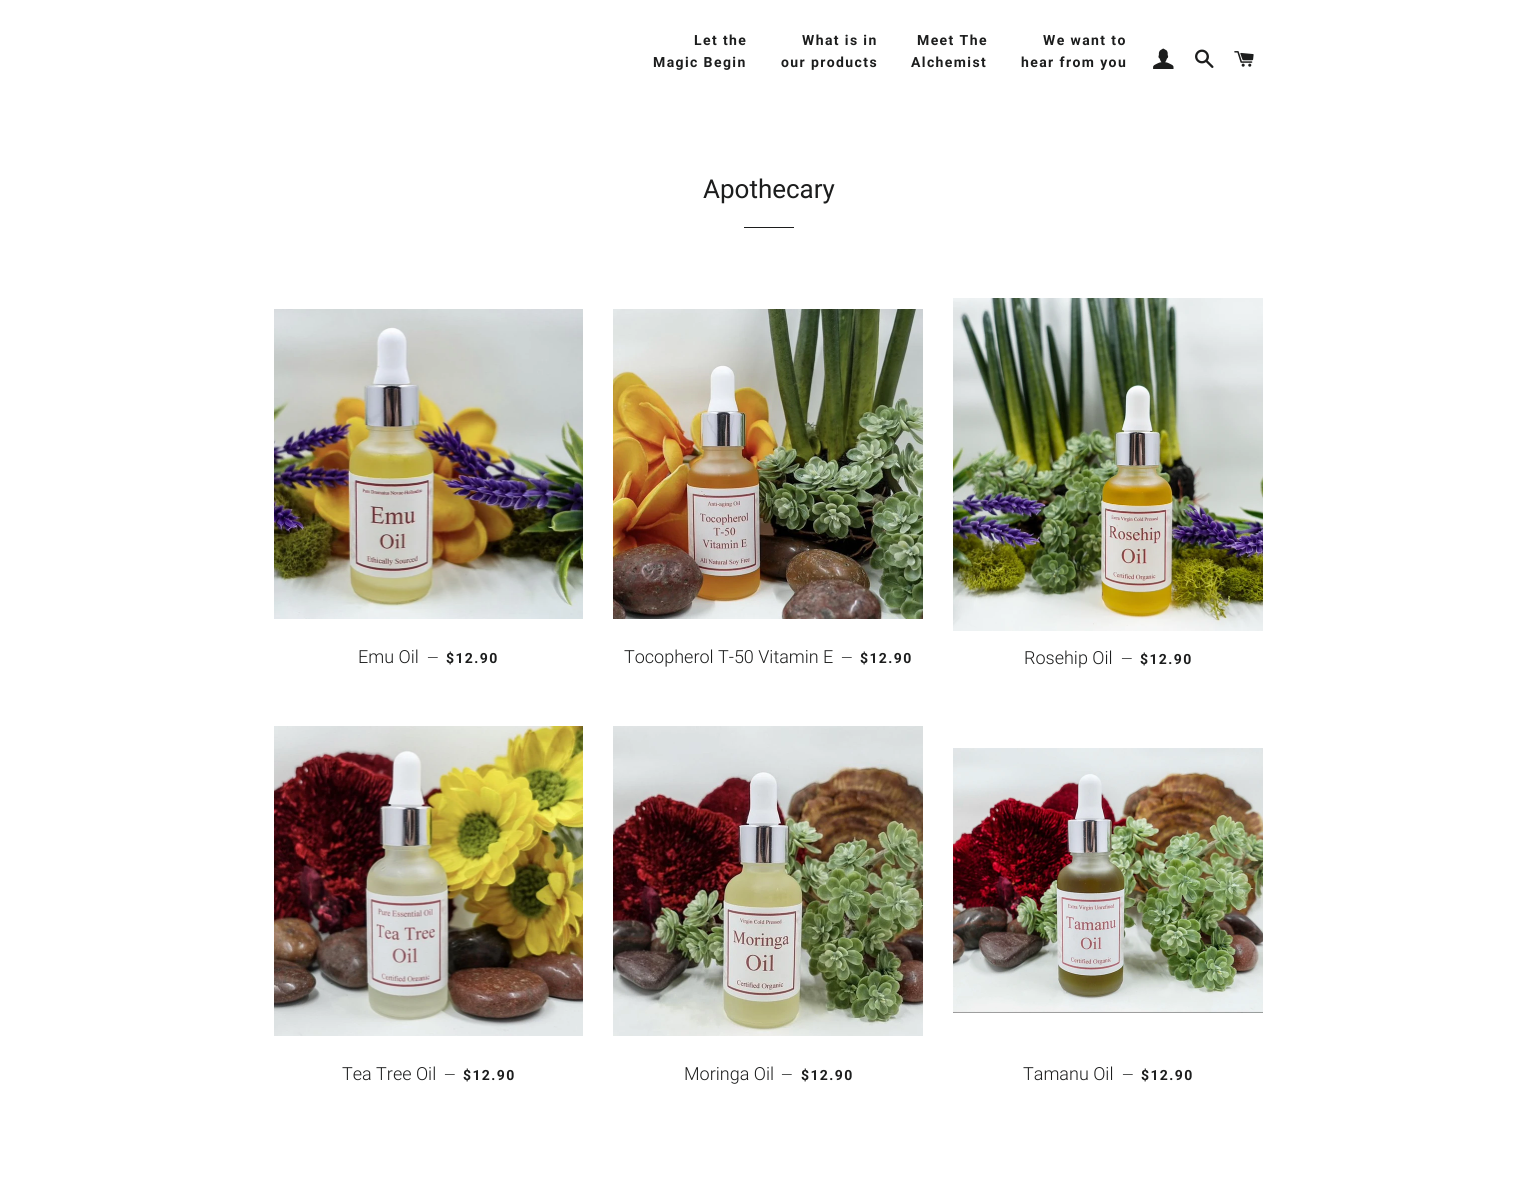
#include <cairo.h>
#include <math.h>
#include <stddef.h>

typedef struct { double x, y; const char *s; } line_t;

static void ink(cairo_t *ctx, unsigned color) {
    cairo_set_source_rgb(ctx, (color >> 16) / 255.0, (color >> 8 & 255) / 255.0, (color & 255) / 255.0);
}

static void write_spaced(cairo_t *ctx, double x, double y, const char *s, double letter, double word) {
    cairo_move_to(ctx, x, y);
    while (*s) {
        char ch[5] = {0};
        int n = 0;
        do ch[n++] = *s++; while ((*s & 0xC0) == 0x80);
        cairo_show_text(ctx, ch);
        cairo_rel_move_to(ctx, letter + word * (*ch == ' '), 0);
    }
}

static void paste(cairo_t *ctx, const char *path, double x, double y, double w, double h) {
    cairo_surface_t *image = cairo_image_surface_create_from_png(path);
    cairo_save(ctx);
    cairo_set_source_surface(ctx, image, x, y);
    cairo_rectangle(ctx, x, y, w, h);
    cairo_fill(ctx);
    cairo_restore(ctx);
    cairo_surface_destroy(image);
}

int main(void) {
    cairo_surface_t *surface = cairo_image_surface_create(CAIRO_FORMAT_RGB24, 1537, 1185);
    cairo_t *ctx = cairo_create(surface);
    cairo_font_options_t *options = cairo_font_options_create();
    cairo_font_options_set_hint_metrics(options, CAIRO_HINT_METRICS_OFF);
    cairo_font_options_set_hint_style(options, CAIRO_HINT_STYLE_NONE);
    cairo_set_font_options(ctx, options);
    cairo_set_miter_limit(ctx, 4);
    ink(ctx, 0xFFFFFF);
    cairo_paint(ctx);
    cairo_select_font_face(ctx, "Roboto", CAIRO_FONT_SLANT_NORMAL, CAIRO_FONT_WEIGHT_BOLD);
    cairo_set_font_size(ctx, 14);
    ink(ctx, 0x1C1D1D);
    {
        static const line_t items[] = {
            {694, 45, "Let the"},
            {653, 67, "Magic Begin"},
            {802, 45, "What is in"},
            {781, 67, "our products"},
            {917, 45, "Meet The"},
            {911, 67, "Alchemist"},
            {1043, 45, "We want to"},
            {1021, 67, "hear from you"},
        };
        for (size_t i = 0; i < sizeof items / sizeof *items; i++) {
            write_spaced(ctx, items[i].x, items[i].y, items[i].s, 1.4, 0);
        }
    }
    paste(ctx, "media/1.png", 1153, 48, 21, 21);
    paste(ctx, "media/2.png", 1195, 49, 19, 19);
    paste(ctx, "media/3.png", 1234, 51, 20, 16);
    cairo_select_font_face(ctx, "Roboto", CAIRO_FONT_SLANT_NORMAL, CAIRO_FONT_WEIGHT_NORMAL);
    cairo_set_font_size(ctx, 26);
    cairo_move_to(ctx, 703, 198);
    cairo_show_text(ctx, "Apothecary");
    cairo_rectangle(ctx, 744, 227, 50, 1);
    cairo_fill(ctx);
    paste(ctx, "media/4.png", 274, 309, 309, 310);
    cairo_select_font_face(ctx, "Roboto Light", CAIRO_FONT_SLANT_NORMAL, CAIRO_FONT_WEIGHT_NORMAL);
    cairo_set_font_size(ctx, 18);
    cairo_move_to(ctx, 358, 663);
    cairo_show_text(ctx, "Emu Oil");
    cairo_set_font_size(ctx, 15);
    cairo_move_to(ctx, 427, 663);
    cairo_show_text(ctx, "—");
    cairo_select_font_face(ctx, "Roboto", CAIRO_FONT_SLANT_NORMAL, CAIRO_FONT_WEIGHT_BOLD);
    cairo_set_font_size(ctx, 14);
    write_spaced(ctx, 446, 663, "$12.90", 1.4, 0);
    paste(ctx, "media/5.png", 613, 309, 310, 310);
    cairo_select_font_face(ctx, "Roboto Light", CAIRO_FONT_SLANT_NORMAL, CAIRO_FONT_WEIGHT_NORMAL);
    cairo_set_font_size(ctx, 18);
    cairo_move_to(ctx, 624, 663);
    cairo_show_text(ctx, "Tocopherol T-50 Vitamin E");
    cairo_set_font_size(ctx, 15);
    cairo_move_to(ctx, 841, 663);
    cairo_show_text(ctx, "—");
    cairo_select_font_face(ctx, "Roboto", CAIRO_FONT_SLANT_NORMAL, CAIRO_FONT_WEIGHT_BOLD);
    cairo_set_font_size(ctx, 14);
    write_spaced(ctx, 860, 663, "$12.90", 1.4, 0);
    paste(ctx, "media/6.png", 953, 298, 310, 333);
    cairo_select_font_face(ctx, "Roboto Light", CAIRO_FONT_SLANT_NORMAL, CAIRO_FONT_WEIGHT_NORMAL);
    cairo_set_font_size(ctx, 18);
    cairo_move_to(ctx, 1024, 664);
    cairo_show_text(ctx, "Rosehip Oil");
    cairo_set_font_size(ctx, 15);
    cairo_move_to(ctx, 1121, 664);
    cairo_show_text(ctx, "—");
    cairo_select_font_face(ctx, "Roboto", CAIRO_FONT_SLANT_NORMAL, CAIRO_FONT_WEIGHT_BOLD);
    cairo_set_font_size(ctx, 14);
    write_spaced(ctx, 1140, 664, "$12.90", 1.4, 0);
    paste(ctx, "media/7.png", 274, 726, 309, 310);
    cairo_select_font_face(ctx, "Roboto Light", CAIRO_FONT_SLANT_NORMAL, CAIRO_FONT_WEIGHT_NORMAL);
    cairo_set_font_size(ctx, 18);
    cairo_move_to(ctx, 342, 1080);
    cairo_show_text(ctx, "Tea Tree Oil");
    cairo_set_font_size(ctx, 15);
    cairo_move_to(ctx, 444, 1080);
    cairo_show_text(ctx, "—");
    cairo_select_font_face(ctx, "Roboto", CAIRO_FONT_SLANT_NORMAL, CAIRO_FONT_WEIGHT_BOLD);
    cairo_set_font_size(ctx, 14);
    write_spaced(ctx, 463, 1080, "$12.90", 1.4, 0);
    paste(ctx, "media/8.png", 613, 726, 310, 310);
    cairo_select_font_face(ctx, "Roboto Light", CAIRO_FONT_SLANT_NORMAL, CAIRO_FONT_WEIGHT_NORMAL);
    cairo_set_font_size(ctx, 18);
    cairo_move_to(ctx, 684, 1080);
    cairo_show_text(ctx, "Moringa Oil");
    cairo_set_font_size(ctx, 15);
    cairo_move_to(ctx, 781, 1080);
    cairo_show_text(ctx, "—");
    cairo_select_font_face(ctx, "Roboto", CAIRO_FONT_SLANT_NORMAL, CAIRO_FONT_WEIGHT_BOLD);
    cairo_set_font_size(ctx, 14);
    write_spaced(ctx, 801, 1080, "$12.90", 1.4, 0);
    paste(ctx, "media/9.png", 953, 748, 310, 265);
    cairo_select_font_face(ctx, "Roboto Light", CAIRO_FONT_SLANT_NORMAL, CAIRO_FONT_WEIGHT_NORMAL);
    cairo_set_font_size(ctx, 18);
    cairo_move_to(ctx, 1023, 1080);
    cairo_show_text(ctx, "Tamanu Oil");
    cairo_set_font_size(ctx, 15);
    cairo_move_to(ctx, 1122, 1080);
    cairo_show_text(ctx, "—");
    cairo_select_font_face(ctx, "Roboto", CAIRO_FONT_SLANT_NORMAL, CAIRO_FONT_WEIGHT_BOLD);
    cairo_set_font_size(ctx, 14);
    write_spaced(ctx, 1141, 1080, "$12.90", 1.4, 0);
    cairo_surface_write_to_png(surface, "image.png");
    cairo_font_options_destroy(options);
    cairo_destroy(ctx);
    cairo_surface_destroy(surface);
    return 0;
}
